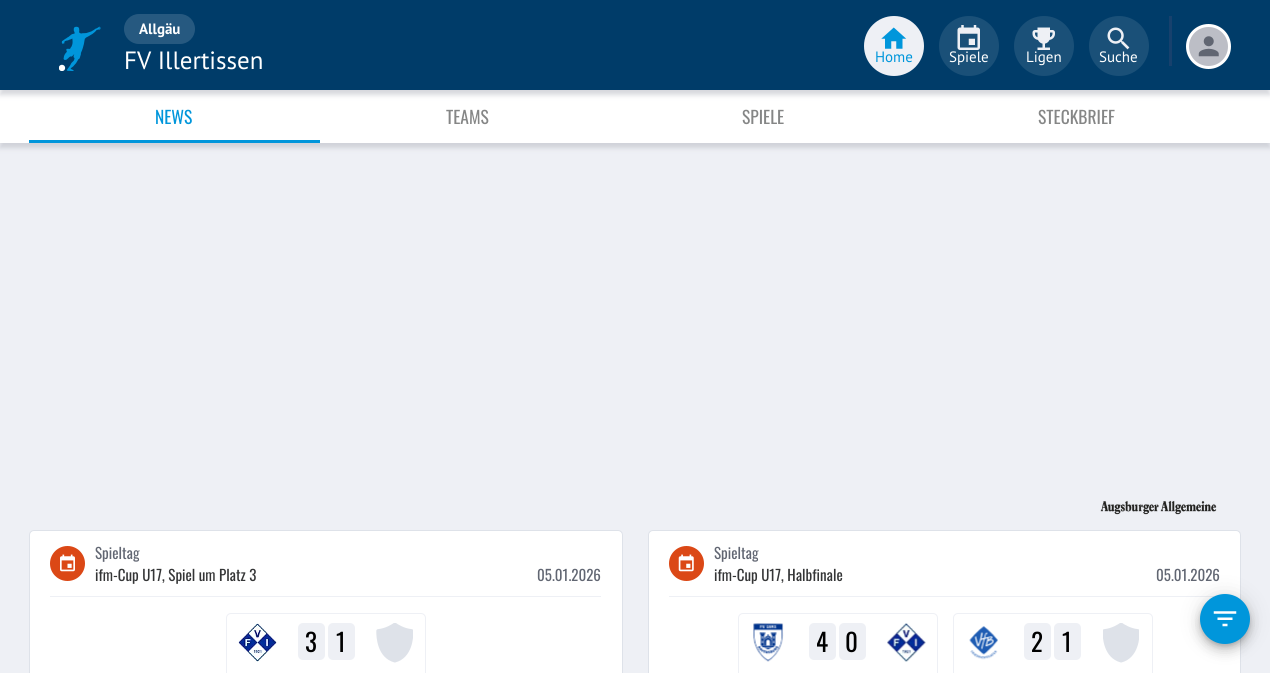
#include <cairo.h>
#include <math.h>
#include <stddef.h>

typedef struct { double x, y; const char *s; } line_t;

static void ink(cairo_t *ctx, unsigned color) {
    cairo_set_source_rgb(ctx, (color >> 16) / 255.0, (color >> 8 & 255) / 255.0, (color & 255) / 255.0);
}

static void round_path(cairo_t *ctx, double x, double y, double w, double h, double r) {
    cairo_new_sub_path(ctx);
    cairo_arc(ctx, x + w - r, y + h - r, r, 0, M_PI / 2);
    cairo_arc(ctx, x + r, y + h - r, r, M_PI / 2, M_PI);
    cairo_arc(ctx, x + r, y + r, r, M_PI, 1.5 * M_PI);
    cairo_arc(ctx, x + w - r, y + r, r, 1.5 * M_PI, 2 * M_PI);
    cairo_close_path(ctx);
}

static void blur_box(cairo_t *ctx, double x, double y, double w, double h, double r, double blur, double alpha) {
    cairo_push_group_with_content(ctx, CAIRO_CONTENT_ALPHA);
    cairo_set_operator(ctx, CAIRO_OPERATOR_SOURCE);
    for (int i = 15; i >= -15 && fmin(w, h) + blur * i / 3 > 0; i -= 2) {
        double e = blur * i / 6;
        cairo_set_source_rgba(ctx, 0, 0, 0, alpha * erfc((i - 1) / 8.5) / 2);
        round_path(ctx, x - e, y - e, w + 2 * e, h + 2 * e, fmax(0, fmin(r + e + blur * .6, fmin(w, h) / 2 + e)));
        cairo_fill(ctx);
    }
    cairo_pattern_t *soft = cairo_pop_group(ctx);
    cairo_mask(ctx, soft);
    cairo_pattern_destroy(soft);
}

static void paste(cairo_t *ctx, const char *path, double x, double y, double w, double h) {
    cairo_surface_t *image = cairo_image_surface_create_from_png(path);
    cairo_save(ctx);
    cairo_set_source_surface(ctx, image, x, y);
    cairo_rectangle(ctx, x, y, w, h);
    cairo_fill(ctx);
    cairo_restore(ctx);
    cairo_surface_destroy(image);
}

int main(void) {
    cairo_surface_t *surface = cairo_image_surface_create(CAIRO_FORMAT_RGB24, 1270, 673);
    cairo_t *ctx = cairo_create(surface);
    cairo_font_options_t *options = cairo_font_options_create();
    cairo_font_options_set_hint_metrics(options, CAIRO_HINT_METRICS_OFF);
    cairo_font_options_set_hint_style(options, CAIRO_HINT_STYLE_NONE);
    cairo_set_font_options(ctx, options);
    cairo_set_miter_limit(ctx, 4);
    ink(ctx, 0xEEF0F5);
    cairo_paint(ctx);
    ink(ctx, 0xBCBEC6);
    blur_box(ctx, 0, 95, 1270, 53, 0, 2.5, 0.6);
    ink(ctx, 0xFFFFFF);
    cairo_rectangle(ctx, 0, 90, 1270, 53);
    cairo_fill(ctx);
    ink(ctx, 0xBCBEC6);
    blur_box(ctx, 0, 5, 1270, 90, 0, 2.5, 0.6);
    ink(ctx, 0x003C69);
    cairo_rectangle(ctx, 0, 0, 1270, 90);
    cairo_fill(ctx);
    paste(ctx, "media/1.png", 59, 26, 42, 45);
    ink(ctx, 0x265980);
    round_path(ctx, 124, 14, 71, 30, 15);
    cairo_fill(ctx);
    cairo_select_font_face(ctx, "PT Sans", CAIRO_FONT_SLANT_NORMAL, CAIRO_FONT_WEIGHT_BOLD);
    cairo_set_font_size(ctx, 15);
    ink(ctx, 0xFFFFFF);
    cairo_move_to(ctx, 139, 34);
    cairo_show_text(ctx, "Allgäu");
    cairo_select_font_face(ctx, "PT Sans", CAIRO_FONT_SLANT_NORMAL, CAIRO_FONT_WEIGHT_NORMAL);
    cairo_set_font_size(ctx, 25);
    cairo_move_to(ctx, 124, 69);
    cairo_show_text(ctx, "FV Illertissen");
    ink(ctx, 0xEEF0F5);
    cairo_new_path(ctx);
    cairo_arc(ctx, 894, 46, 30, 0, 2 * M_PI);
    cairo_fill(ctx);
    paste(ctx, "media/2.png", 881, 27, 26, 22);
    cairo_set_font_size(ctx, 15);
    ink(ctx, 0x0096DB);
    cairo_move_to(ctx, 875, 62);
    cairo_show_text(ctx, "Home");
    ink(ctx, 0x1A5078);
    cairo_new_path(ctx);
    cairo_arc(ctx, 969, 46, 30, 0, 2 * M_PI);
    cairo_fill(ctx);
    paste(ctx, "media/3.png", 957, 25, 23, 25);
    ink(ctx, 0xFFFFFF);
    cairo_move_to(ctx, 949, 62);
    cairo_show_text(ctx, "Spiele");
    ink(ctx, 0x1A5078);
    cairo_new_path(ctx);
    cairo_arc(ctx, 1044, 46, 30, 0, 2 * M_PI);
    cairo_fill(ctx);
    paste(ctx, "media/4.png", 1032, 27, 23, 23);
    ink(ctx, 0xFFFFFF);
    cairo_move_to(ctx, 1026, 62);
    cairo_show_text(ctx, "Ligen");
    ink(ctx, 0x1A5078);
    cairo_new_path(ctx);
    cairo_arc(ctx, 1119, 46, 30, 0, 2 * M_PI);
    cairo_fill(ctx);
    paste(ctx, "media/5.png", 1107, 27, 23, 23);
    ink(ctx, 0xFFFFFF);
    cairo_move_to(ctx, 1099, 62);
    cairo_show_text(ctx, "Suche");
    ink(ctx, 0x17416D);
    cairo_rectangle(ctx, 1169, 16, 3, 50);
    cairo_fill(ctx);
    ink(ctx, 0xBCBEC6);
    cairo_arc(ctx, 1208.5, 46.5, 21, 0, 2 * M_PI);
    cairo_fill_preserve(ctx);
    ink(ctx, 0xFFFFFF);
    cairo_set_line_width(ctx, 3);
    cairo_stroke(ctx);
    paste(ctx, "media/6.png", 1198, 36, 21, 21);
    cairo_select_font_face(ctx, "Oswald", CAIRO_FONT_SLANT_NORMAL, CAIRO_FONT_WEIGHT_NORMAL);
    cairo_set_font_size(ctx, 17.5);
    ink(ctx, 0x0096DB);
    cairo_move_to(ctx, 155, 124);
    cairo_show_text(ctx, "NEWS");
    ink(ctx, 0x858686);
    {
        static const line_t items[] = {
            {446, 124, "TEAMS"},
            {742, 124, "SPIELE"},
            {1038, 124, "STECKBRIEF"},
        };
        for (size_t i = 0; i < sizeof items / sizeof *items; i++) {
            cairo_move_to(ctx, items[i].x, items[i].y);
            cairo_show_text(ctx, items[i].s);
        }
    }
    ink(ctx, 0x0096DB);
    cairo_rectangle(ctx, 29, 140, 291, 3);
    cairo_fill(ctx);
    paste(ctx, "media/7.png", 1100, 500, 117, 15);
    ink(ctx, 0xFFFFFF);
    round_path(ctx, 29.5, 530.5, 593, 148, 4.5);
    cairo_fill_preserve(ctx);
    ink(ctx, 0xDEE2E9);
    cairo_set_line_width(ctx, 1);
    cairo_stroke(ctx);
    ink(ctx, 0xDB4816);
    cairo_arc(ctx, 67.5, 563.5, 17.5, 0, 2 * M_PI);
    cairo_fill(ctx);
    paste(ctx, "media/8.png", 60, 554, 15, 18);
    cairo_set_font_size(ctx, 15);
    ink(ctx, 0x616672);
    cairo_move_to(ctx, 95, 559);
    cairo_show_text(ctx, "Spieltag");
    ink(ctx, 0x343536);
    cairo_move_to(ctx, 95, 581);
    cairo_show_text(ctx, "ifm-Cup U17, Spiel um Platz 3");
    ink(ctx, 0x616672);
    cairo_move_to(ctx, 537, 581);
    cairo_show_text(ctx, "05.01.2026");
    ink(ctx, 0xEEF0F5);
    cairo_rectangle(ctx, 50, 596, 551, 1);
    cairo_fill(ctx);
    round_path(ctx, 226.5, 613.5, 199, 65, 4.5);
    cairo_stroke(ctx);
    paste(ctx, "media/9.png", 238, 623, 39, 39);
    round_path(ctx, 298, 623, 27, 37, 5);
    cairo_fill(ctx);
    cairo_set_font_size(ctx, 25);
    ink(ctx, 0x000000);
    cairo_move_to(ctx, 305, 652);
    cairo_show_text(ctx, "3");
    ink(ctx, 0xEEF0F5);
    round_path(ctx, 328, 623, 27, 37, 5);
    cairo_fill(ctx);
    ink(ctx, 0x000000);
    cairo_move_to(ctx, 336, 652);
    cairo_show_text(ctx, "1");
    paste(ctx, "media/10.png", 376, 623, 37, 40);
    ink(ctx, 0xFFFFFF);
    round_path(ctx, 648.5, 530.5, 592, 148, 4.5);
    cairo_fill_preserve(ctx);
    ink(ctx, 0xDEE2E9);
    cairo_stroke(ctx);
    ink(ctx, 0xDB4816);
    cairo_arc(ctx, 686.5, 563.5, 17.5, 0, 2 * M_PI);
    cairo_fill(ctx);
    paste(ctx, "media/11.png", 678, 554, 16, 18);
    cairo_set_font_size(ctx, 15);
    ink(ctx, 0x616672);
    cairo_move_to(ctx, 714, 559);
    cairo_show_text(ctx, "Spieltag");
    ink(ctx, 0x343536);
    cairo_move_to(ctx, 714, 581);
    cairo_show_text(ctx, "ifm-Cup U17, Halbfinale");
    ink(ctx, 0x616672);
    cairo_move_to(ctx, 1156, 581);
    cairo_show_text(ctx, "05.01.2026");
    ink(ctx, 0xEEF0F5);
    cairo_rectangle(ctx, 669, 596, 551, 1);
    cairo_fill(ctx);
    round_path(ctx, 738.5, 613.5, 199, 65, 4.5);
    cairo_stroke(ctx);
    paste(ctx, "media/12.png", 753, 623, 31, 39);
    round_path(ctx, 809, 623, 27, 37, 5);
    cairo_fill(ctx);
    cairo_set_font_size(ctx, 25);
    ink(ctx, 0x000000);
    cairo_move_to(ctx, 816, 652);
    cairo_show_text(ctx, "4");
    ink(ctx, 0xEEF0F5);
    round_path(ctx, 839, 623, 27, 37, 5);
    cairo_fill(ctx);
    ink(ctx, 0x000000);
    cairo_move_to(ctx, 845, 652);
    cairo_show_text(ctx, "0");
    paste(ctx, "media/13.png", 887, 623, 39, 39);
    round_path(ctx, 953.5, 613.5, 199, 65, 4.5);
    ink(ctx, 0xEEF0F5);
    cairo_stroke(ctx);
    paste(ctx, "media/14.png", 969, 626, 29, 34);
    round_path(ctx, 1024, 623, 27, 37, 5);
    cairo_fill(ctx);
    ink(ctx, 0x000000);
    cairo_move_to(ctx, 1031, 652);
    cairo_show_text(ctx, "2");
    ink(ctx, 0xEEF0F5);
    round_path(ctx, 1054, 623, 27, 37, 5);
    cairo_fill(ctx);
    ink(ctx, 0x000000);
    cairo_move_to(ctx, 1062, 652);
    cairo_show_text(ctx, "1");
    paste(ctx, "media/15.png", 1103, 623, 36, 40);
    ink(ctx, 0x000000);
    blur_box(ctx, 1200, 595, 50, 50, 25, 11, 0.12);
    blur_box(ctx, 1200, 601, 50, 50, 25, 6, 0.14);
    blur_box(ctx, 1201, 599, 48, 47, 23.5, 3, 0.2);
    ink(ctx, 0x0096DB);
    cairo_arc(ctx, 1225, 619, 25, 0, 2 * M_PI);
    cairo_fill(ctx);
    paste(ctx, "media/16.png", 1213, 611, 24, 16);
    cairo_surface_write_to_png(surface, "image.png");
    cairo_font_options_destroy(options);
    cairo_destroy(ctx);
    cairo_surface_destroy(surface);
    return 0;
}
